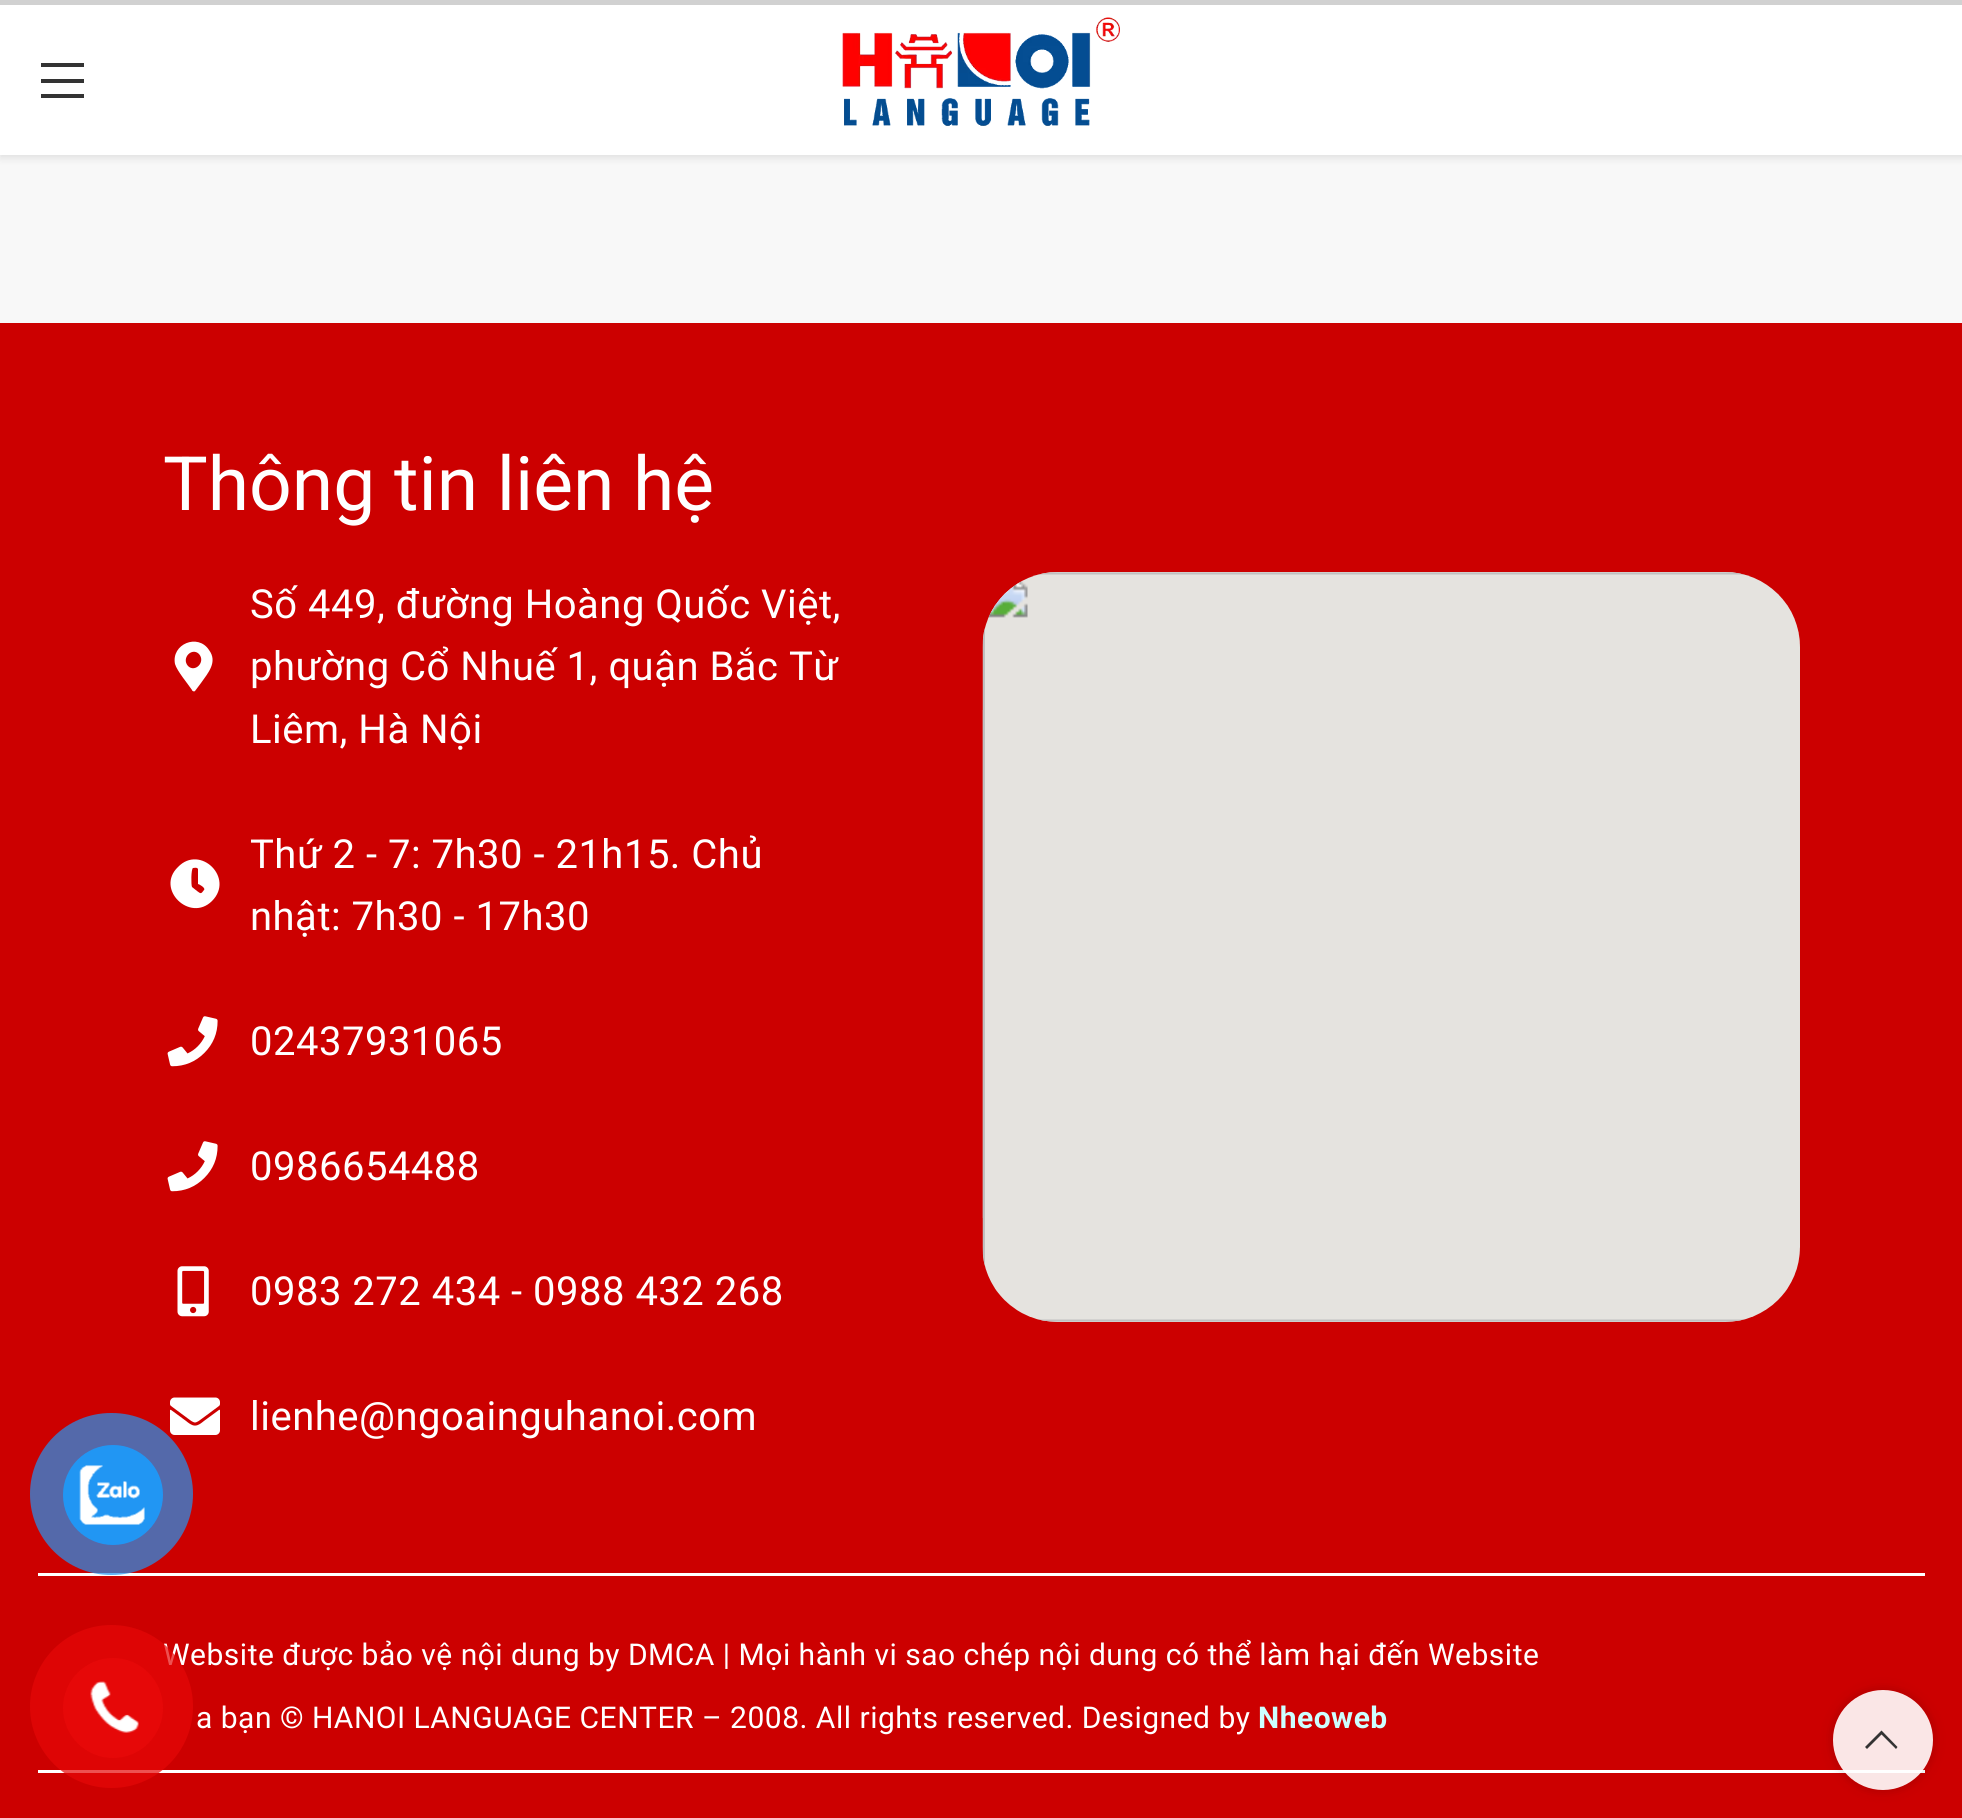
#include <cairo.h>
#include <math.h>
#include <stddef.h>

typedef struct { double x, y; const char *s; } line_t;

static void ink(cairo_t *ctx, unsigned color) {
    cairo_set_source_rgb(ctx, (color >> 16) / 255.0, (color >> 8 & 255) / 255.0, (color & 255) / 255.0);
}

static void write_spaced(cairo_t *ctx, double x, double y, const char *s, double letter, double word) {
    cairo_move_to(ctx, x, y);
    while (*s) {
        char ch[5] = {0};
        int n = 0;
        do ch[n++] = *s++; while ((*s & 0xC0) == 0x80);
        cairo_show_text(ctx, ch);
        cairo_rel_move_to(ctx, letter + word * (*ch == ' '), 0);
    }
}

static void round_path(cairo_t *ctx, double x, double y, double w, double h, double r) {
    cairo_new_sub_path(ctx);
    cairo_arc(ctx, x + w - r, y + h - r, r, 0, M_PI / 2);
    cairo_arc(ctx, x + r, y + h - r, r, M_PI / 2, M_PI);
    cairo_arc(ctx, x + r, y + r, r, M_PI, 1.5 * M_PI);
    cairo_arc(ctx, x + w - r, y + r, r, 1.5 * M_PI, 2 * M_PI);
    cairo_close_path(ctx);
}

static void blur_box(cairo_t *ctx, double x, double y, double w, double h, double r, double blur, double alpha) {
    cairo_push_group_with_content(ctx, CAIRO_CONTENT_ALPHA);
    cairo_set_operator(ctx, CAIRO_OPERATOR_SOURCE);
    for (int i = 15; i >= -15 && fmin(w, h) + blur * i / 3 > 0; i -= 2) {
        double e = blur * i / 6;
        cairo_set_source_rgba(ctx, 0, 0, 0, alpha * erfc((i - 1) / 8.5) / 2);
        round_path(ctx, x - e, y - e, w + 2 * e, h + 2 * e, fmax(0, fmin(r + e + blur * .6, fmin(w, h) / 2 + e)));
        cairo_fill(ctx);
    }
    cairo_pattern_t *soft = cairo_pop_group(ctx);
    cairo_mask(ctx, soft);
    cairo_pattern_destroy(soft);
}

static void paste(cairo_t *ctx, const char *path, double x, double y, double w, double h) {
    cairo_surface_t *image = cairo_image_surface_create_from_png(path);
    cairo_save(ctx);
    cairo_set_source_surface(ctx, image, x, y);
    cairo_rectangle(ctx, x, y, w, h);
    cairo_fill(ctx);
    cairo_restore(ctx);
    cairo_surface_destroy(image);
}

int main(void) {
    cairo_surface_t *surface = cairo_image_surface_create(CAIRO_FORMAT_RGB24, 1962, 1818);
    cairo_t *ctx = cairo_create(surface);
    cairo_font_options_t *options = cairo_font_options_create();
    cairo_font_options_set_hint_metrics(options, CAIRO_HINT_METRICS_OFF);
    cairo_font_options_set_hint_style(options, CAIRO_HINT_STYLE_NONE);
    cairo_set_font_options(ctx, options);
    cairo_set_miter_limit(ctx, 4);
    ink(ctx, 0xF8F8F8);
    cairo_paint(ctx);
    ink(ctx, 0xCC0000);
    cairo_rectangle(ctx, 0, 323, 1962, 1495);
    cairo_fill(ctx);
    paste(ctx, "media/6.png", 170, 1397, 50, 38);
    ink(ctx, 0xFFFFFF);
    cairo_rectangle(ctx, 38, 1573, 1887, 3);
    cairo_fill(ctx);
    cairo_set_source_rgba(ctx, 0.129, 0.588, 0.953, 0.7);
    round_path(ctx, 30, 1413, 163, 162, 81);
    cairo_fill(ctx);
    ink(ctx, 0x2196F3);
    cairo_arc(ctx, 113, 1495, 50, 0, 2 * M_PI);
    cairo_fill(ctx);
    paste(ctx, "media/1.png", 79, 1465, 66, 60);
    ink(ctx, 0xFFFFFF);
    cairo_rectangle(ctx, 38, 1770, 1887, 3);
    cairo_fill(ctx);
    cairo_select_font_face(ctx, "Roboto", CAIRO_FONT_SLANT_NORMAL, CAIRO_FONT_WEIGHT_NORMAL);
    cairo_set_font_size(ctx, 30);
    write_spaced(ctx, 163, 1665, "Website được bảo vệ nội dung by DMCA | Mọi hành vi sao chép nội dung có thể làm hại đến Website", 0.5, 0);
    cairo_set_source_rgba(ctx, 0.902, 0.031, 0.031, 0.7);
    cairo_new_path(ctx);
    cairo_arc(ctx, 111.5, 1706.5, 81.5, 0, 2 * M_PI);
    cairo_fill(ctx);
    ink(ctx, 0xE60808);
    cairo_arc(ctx, 113, 1708, 50, 0, 2 * M_PI);
    cairo_fill(ctx);
    paste(ctx, "media/2.png", 90, 1681, 49, 52);
    ink(ctx, 0x000000);
    blur_box(ctx, 0, 3, 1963, 155, 0, 4, 0.1);
    ink(ctx, 0xFFFFFF);
    cairo_rectangle(ctx, 0, 5, 1962, 150);
    cairo_fill(ctx);
    ink(ctx, 0xD1D1D1);
    cairo_rectangle(ctx, 0, 0, 1962, 5);
    cairo_fill(ctx);
    ink(ctx, 0x333333);
    cairo_new_path(ctx);
    cairo_move_to(ctx, 41, 67);
    cairo_line_to(ctx, 84, 67);
    cairo_line_to(ctx, 84, 63);
    cairo_line_to(ctx, 41, 63);
    cairo_close_path(ctx);
    cairo_move_to(ctx, 41, 83);
    cairo_line_to(ctx, 84, 83);
    cairo_line_to(ctx, 84, 79);
    cairo_line_to(ctx, 41, 79);
    cairo_close_path(ctx);
    cairo_move_to(ctx, 41, 98);
    cairo_line_to(ctx, 84, 98);
    cairo_line_to(ctx, 84, 94);
    cairo_line_to(ctx, 41, 94);
    cairo_close_path(ctx);
    cairo_fill(ctx);
    paste(ctx, "media/3.png", 842, 17, 278, 109);
    cairo_set_font_size(ctx, 75);
    ink(ctx, 0xFFFFFF);
    cairo_move_to(ctx, 163, 510);
    cairo_show_text(ctx, "Thông tin liên hệ");
    cairo_new_path(ctx);
    cairo_move_to(ctx, 192, 690);
    cairo_curve_to(ctx, 188, 684, 177, 671, 175, 664);
    cairo_curve_to(ctx, 171, 644, 198, 633, 209, 650);
    cairo_curve_to(ctx, 218, 662, 208, 673, 201, 683);
    cairo_line_to(ctx, 195, 691);
    cairo_curve_to(ctx, 194, 692, 192, 691, 192, 690);
    cairo_close_path(ctx);
    cairo_move_to(ctx, 188, 666);
    cairo_curve_to(ctx, 195, 673, 206, 662, 199, 654);
    cairo_curve_to(ctx, 192, 647, 181, 658, 188, 666);
    cairo_close_path(ctx);
    cairo_fill(ctx);
    cairo_set_font_size(ctx, 40);
    {
        static const line_t items[] = {
            {250, 618, "Số 449, đường Hoàng Quốc Việt,"},
            {250, 680, "phường Cổ Nhuế 1, quận Bắc Từ"},
            {250, 743, "Liêm, Hà Nội"},
        };
        for (size_t i = 0; i < sizeof items / sizeof *items; i++) {
            write_spaced(ctx, items[i].x, items[i].y, items[i].s, 0.5, 0);
        }
    }
    cairo_new_path(ctx);
    cairo_move_to(ctx, 178, 867);
    cairo_curve_to(ctx, 200, 844, 235, 878, 212, 901);
    cairo_curve_to(ctx, 190, 923, 155, 889, 178, 867);
    cairo_close_path(ctx);
    cairo_move_to(ctx, 204, 890);
    cairo_curve_to(ctx, 206, 888, 199, 884, 198, 884);
    cairo_line_to(ctx, 198, 869);
    cairo_curve_to(ctx, 197, 867, 194, 868, 193, 868);
    cairo_curve_to(ctx, 191, 869, 191, 885, 192, 887);
    cairo_line_to(ctx, 197, 891);
    cairo_curve_to(ctx, 201, 894, 201, 894, 204, 890);
    cairo_close_path(ctx);
    cairo_fill(ctx);
    write_spaced(ctx, 250, 868, "Thứ 2 - 7: 7h30 - 21h15. Chủ", 0.5, 0);
    write_spaced(ctx, 250, 930, "nhật: 7h30 - 17h30", 0.5, 0);
    paste(ctx, "media/4.png", 167, 1016, 51, 51);
    write_spaced(ctx, 250, 1055, "02437931065", 0.5, 0);
    paste(ctx, "media/4.png", 167, 1141, 51, 51);
    write_spaced(ctx, 250, 1180, "0986654488", 0.5, 0);
    paste(ctx, "media/5.png", 177, 1266, 32, 51);
    write_spaced(ctx, 250, 1305, "0983 272 434 - 0988 432 268", 0.5, 0);
    write_spaced(ctx, 250, 1430, "lienhe@ngoainguhanoi.com", 0.5, 0);
    paste(ctx, "media/7.png", 982, 572, 818, 750);
    cairo_set_font_size(ctx, 30);
    write_spaced(ctx, 196, 1728, "a bạn © HANOI LANGUAGE CENTER – 2008. All rights reserved. Designed by", 0.5, 0);
    cairo_select_font_face(ctx, "Roboto", CAIRO_FONT_SLANT_NORMAL, CAIRO_FONT_WEIGHT_BOLD);
    ink(ctx, 0xCCFFFF);
    write_spaced(ctx, 1258, 1728, "Nheoweb", 0.5, 0);
    cairo_save(ctx);
    cairo_set_fill_rule(ctx, CAIRO_FILL_RULE_EVEN_ODD);
    cairo_new_path(ctx);
    cairo_move_to(ctx, 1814, 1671);
    cairo_line_to(ctx, 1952, 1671);
    cairo_line_to(ctx, 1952, 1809);
    cairo_line_to(ctx, 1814, 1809);
    cairo_close_path(ctx);
    cairo_move_to(ctx, 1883, 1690);
    cairo_curve_to(ctx, 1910.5, 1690, 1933, 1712.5, 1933, 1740);
    cairo_curve_to(ctx, 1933, 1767.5, 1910.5, 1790, 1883, 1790);
    cairo_curve_to(ctx, 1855.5, 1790, 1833, 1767.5, 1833, 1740);
    cairo_curve_to(ctx, 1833, 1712.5, 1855.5, 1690, 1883, 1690);
    cairo_close_path(ctx);
    cairo_clip(ctx);
    ink(ctx, 0x000000);
    blur_box(ctx, 1833, 1690, 100, 100, 50, 6, 0.17);
    cairo_restore(ctx);
    cairo_set_source_rgba(ctx, 1, 1, 1, 0.9);
    cairo_arc(ctx, 1883, 1740, 50, 0, 2 * M_PI);
    cairo_fill(ctx);
    ink(ctx, 0x333333);
    cairo_new_path(ctx);
    cairo_move_to(ctx, 1896, 1749);
    cairo_line_to(ctx, 1897.5, 1747);
    cairo_line_to(ctx, 1881.5, 1730.5);
    cairo_line_to(ctx, 1865, 1747);
    cairo_line_to(ctx, 1867, 1749);
    cairo_line_to(ctx, 1881.5, 1734.5);
    cairo_close_path(ctx);
    cairo_fill(ctx);
    cairo_surface_write_to_png(surface, "image.png");
    cairo_font_options_destroy(options);
    cairo_destroy(ctx);
    cairo_surface_destroy(surface);
    return 0;
}
